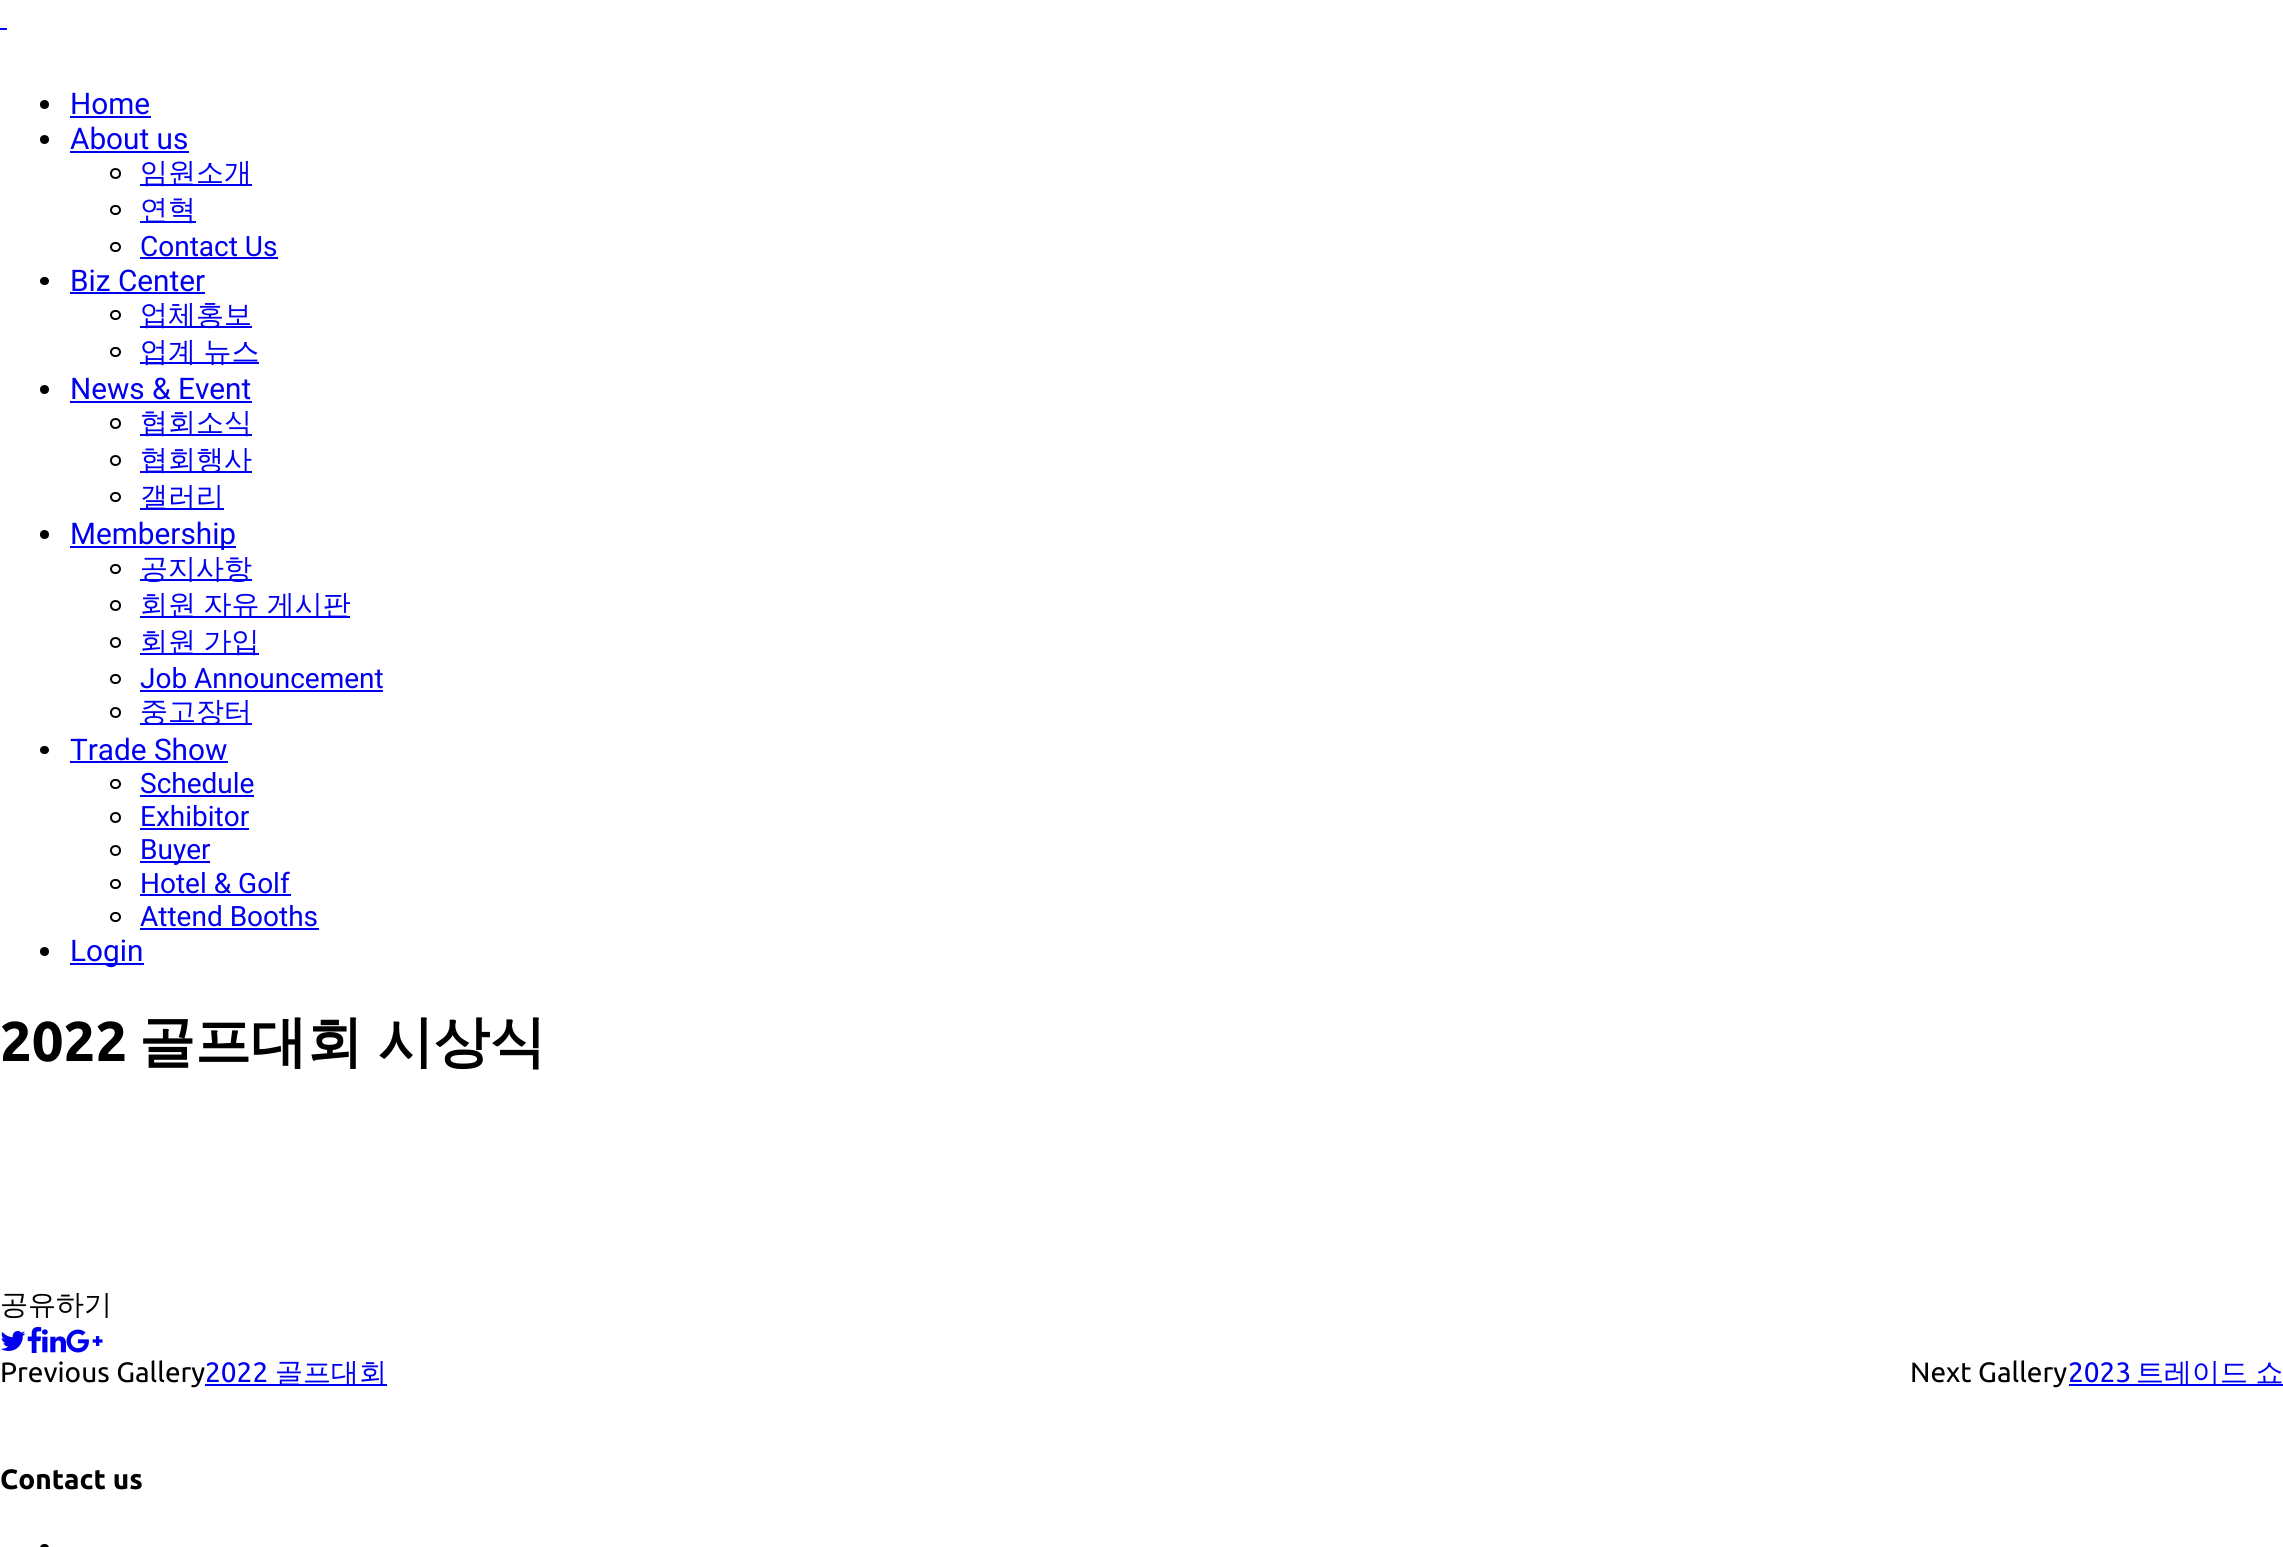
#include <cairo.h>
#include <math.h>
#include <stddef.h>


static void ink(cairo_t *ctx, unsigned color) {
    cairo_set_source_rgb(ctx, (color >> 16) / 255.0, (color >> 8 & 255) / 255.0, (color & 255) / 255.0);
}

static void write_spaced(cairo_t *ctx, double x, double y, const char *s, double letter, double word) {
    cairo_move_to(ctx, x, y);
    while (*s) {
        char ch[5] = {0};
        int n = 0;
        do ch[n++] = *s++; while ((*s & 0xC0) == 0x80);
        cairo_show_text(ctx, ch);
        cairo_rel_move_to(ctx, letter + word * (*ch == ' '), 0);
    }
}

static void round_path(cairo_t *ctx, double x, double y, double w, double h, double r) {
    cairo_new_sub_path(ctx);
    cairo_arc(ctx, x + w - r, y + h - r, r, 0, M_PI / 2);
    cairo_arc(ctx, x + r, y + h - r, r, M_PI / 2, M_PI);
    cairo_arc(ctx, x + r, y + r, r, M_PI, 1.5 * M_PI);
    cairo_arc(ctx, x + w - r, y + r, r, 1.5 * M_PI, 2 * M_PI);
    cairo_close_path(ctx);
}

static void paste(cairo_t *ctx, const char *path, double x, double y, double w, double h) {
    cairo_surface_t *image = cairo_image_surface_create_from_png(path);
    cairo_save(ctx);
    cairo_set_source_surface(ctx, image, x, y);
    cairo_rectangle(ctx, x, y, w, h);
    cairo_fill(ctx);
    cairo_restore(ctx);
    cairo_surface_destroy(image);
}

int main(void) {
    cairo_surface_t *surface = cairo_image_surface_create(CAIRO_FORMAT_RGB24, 2283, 1547);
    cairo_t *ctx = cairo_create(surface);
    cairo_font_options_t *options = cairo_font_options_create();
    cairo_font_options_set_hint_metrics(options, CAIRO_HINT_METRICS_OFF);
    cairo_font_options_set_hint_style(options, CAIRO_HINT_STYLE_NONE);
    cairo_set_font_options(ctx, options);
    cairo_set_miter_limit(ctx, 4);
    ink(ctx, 0xFFFFFF);
    cairo_paint(ctx);
    ink(ctx, 0x0000EE);
    cairo_rectangle(ctx, 0, 28, 7, 2);
    cairo_fill(ctx);
    ink(ctx, 0x000000);
    cairo_arc(ctx, 44.5, 104.5, 4.5, 0, 2 * M_PI);
    cairo_fill(ctx);
    cairo_select_font_face(ctx, "Roboto", CAIRO_FONT_SLANT_NORMAL, CAIRO_FONT_WEIGHT_NORMAL);
    cairo_set_font_size(ctx, 29.75);
    ink(ctx, 0x0000EE);
    cairo_move_to(ctx, 70, 114);
    cairo_show_text(ctx, "Home");
    cairo_rectangle(ctx, 70, 116, 81, 2);
    cairo_fill(ctx);
    ink(ctx, 0x000000);
    cairo_arc(ctx, 44.5, 139.5, 4.5, 0, 2 * M_PI);
    cairo_fill(ctx);
    ink(ctx, 0x0000EE);
    cairo_move_to(ctx, 70, 149);
    cairo_show_text(ctx, "About us");
    cairo_rectangle(ctx, 70, 151, 119, 2);
    cairo_fill(ctx);
    cairo_arc(ctx, 115.5, 173.5, 4.5, 0, 2 * M_PI);
    ink(ctx, 0x000000);
    cairo_stroke(ctx);
    ink(ctx, 0x0000EE);
    cairo_rectangle(ctx, 140, 184, 112, 2);
    cairo_fill(ctx);
    cairo_select_font_face(ctx, "WenQuanYi Zen Hei Medium", CAIRO_FONT_SLANT_NORMAL, CAIRO_FONT_WEIGHT_NORMAL);
    cairo_set_font_size(ctx, 28);
    cairo_move_to(ctx, 140, 182);
    cairo_show_text(ctx, "임원소개");
    round_path(ctx, 111, 206, 9, 8, 4);
    ink(ctx, 0x000000);
    cairo_stroke(ctx);
    ink(ctx, 0x0000EE);
    cairo_rectangle(ctx, 140, 221, 56, 2);
    cairo_fill(ctx);
    cairo_move_to(ctx, 140, 219);
    cairo_show_text(ctx, "연혁");
    round_path(ctx, 111, 243, 9, 8, 4);
    ink(ctx, 0x000000);
    cairo_stroke(ctx);
    cairo_select_font_face(ctx, "Roboto", CAIRO_FONT_SLANT_NORMAL, CAIRO_FONT_WEIGHT_NORMAL);
    ink(ctx, 0x0000EE);
    cairo_move_to(ctx, 140, 256);
    cairo_show_text(ctx, "Contact Us");
    cairo_rectangle(ctx, 140, 257, 138, 2);
    cairo_fill(ctx);
    ink(ctx, 0x000000);
    round_path(ctx, 40, 277, 9, 8, 4);
    cairo_fill(ctx);
    cairo_set_font_size(ctx, 29.75);
    ink(ctx, 0x0000EE);
    cairo_move_to(ctx, 70, 291);
    cairo_show_text(ctx, "Biz Center");
    cairo_rectangle(ctx, 70, 292, 135, 2);
    cairo_fill(ctx);
    round_path(ctx, 111, 311, 9, 8, 4);
    ink(ctx, 0x000000);
    cairo_stroke(ctx);
    ink(ctx, 0x0000EE);
    cairo_rectangle(ctx, 140, 326, 112, 2);
    cairo_fill(ctx);
    cairo_select_font_face(ctx, "WenQuanYi Zen Hei Medium", CAIRO_FONT_SLANT_NORMAL, CAIRO_FONT_WEIGHT_NORMAL);
    cairo_set_font_size(ctx, 28);
    cairo_move_to(ctx, 140, 324);
    cairo_show_text(ctx, "업체홍보");
    round_path(ctx, 111, 348, 9, 8, 4);
    ink(ctx, 0x000000);
    cairo_stroke(ctx);
    ink(ctx, 0x0000EE);
    cairo_rectangle(ctx, 140, 362, 119, 2);
    cairo_fill(ctx);
    write_spaced(ctx, 140, 361, "업계 뉴스", 0, -1);
    ink(ctx, 0x000000);
    cairo_new_path(ctx);
    cairo_arc(ctx, 44.5, 389.5, 4.5, 0, 2 * M_PI);
    cairo_fill(ctx);
    cairo_select_font_face(ctx, "Roboto", CAIRO_FONT_SLANT_NORMAL, CAIRO_FONT_WEIGHT_NORMAL);
    cairo_set_font_size(ctx, 29.75);
    ink(ctx, 0x0000EE);
    cairo_move_to(ctx, 70, 399);
    cairo_show_text(ctx, "News & Event");
    cairo_rectangle(ctx, 70, 401, 182, 2);
    cairo_fill(ctx);
    cairo_arc(ctx, 115.5, 423.5, 4.5, 0, 2 * M_PI);
    ink(ctx, 0x000000);
    cairo_stroke(ctx);
    ink(ctx, 0x0000EE);
    cairo_rectangle(ctx, 140, 434, 112, 2);
    cairo_fill(ctx);
    cairo_select_font_face(ctx, "WenQuanYi Zen Hei Medium", CAIRO_FONT_SLANT_NORMAL, CAIRO_FONT_WEIGHT_NORMAL);
    cairo_set_font_size(ctx, 28);
    cairo_move_to(ctx, 140, 432);
    cairo_show_text(ctx, "협회소식");
    cairo_new_path(ctx);
    cairo_arc(ctx, 115.5, 460.5, 4.5, 0, 2 * M_PI);
    ink(ctx, 0x000000);
    cairo_stroke(ctx);
    ink(ctx, 0x0000EE);
    cairo_rectangle(ctx, 140, 471, 112, 2);
    cairo_fill(ctx);
    cairo_move_to(ctx, 140, 469);
    cairo_show_text(ctx, "협회행사");
    round_path(ctx, 111, 493, 9, 8, 4);
    ink(ctx, 0x000000);
    cairo_stroke(ctx);
    ink(ctx, 0x0000EE);
    cairo_rectangle(ctx, 140, 508, 84, 2);
    cairo_fill(ctx);
    cairo_move_to(ctx, 140, 506);
    cairo_show_text(ctx, "갤러리");
    ink(ctx, 0x000000);
    cairo_new_path(ctx);
    cairo_arc(ctx, 44.5, 534.5, 4.5, 0, 2 * M_PI);
    cairo_fill(ctx);
    ink(ctx, 0x0000EE);
    cairo_rectangle(ctx, 70, 546, 166, 2);
    cairo_fill(ctx);
    cairo_select_font_face(ctx, "Roboto", CAIRO_FONT_SLANT_NORMAL, CAIRO_FONT_WEIGHT_NORMAL);
    cairo_set_font_size(ctx, 29.75);
    cairo_move_to(ctx, 70, 544);
    cairo_show_text(ctx, "Membership");
    round_path(ctx, 111, 565, 9, 8, 4);
    ink(ctx, 0x000000);
    cairo_stroke(ctx);
    ink(ctx, 0x0000EE);
    cairo_rectangle(ctx, 140, 579, 112, 2);
    cairo_fill(ctx);
    cairo_select_font_face(ctx, "WenQuanYi Zen Hei Medium", CAIRO_FONT_SLANT_NORMAL, CAIRO_FONT_WEIGHT_NORMAL);
    cairo_set_font_size(ctx, 28);
    cairo_move_to(ctx, 140, 578);
    cairo_show_text(ctx, "공지사항");
    cairo_new_path(ctx);
    cairo_arc(ctx, 115.5, 605.5, 4.5, 0, 2 * M_PI);
    ink(ctx, 0x000000);
    cairo_stroke(ctx);
    ink(ctx, 0x0000EE);
    cairo_rectangle(ctx, 140, 616, 210, 2);
    cairo_fill(ctx);
    write_spaced(ctx, 140, 614, "회원 자유 게시판", 0, -1);
    cairo_new_path(ctx);
    cairo_arc(ctx, 115.5, 642.5, 4.5, 0, 2 * M_PI);
    ink(ctx, 0x000000);
    cairo_stroke(ctx);
    ink(ctx, 0x0000EE);
    cairo_rectangle(ctx, 140, 653, 119, 2);
    cairo_fill(ctx);
    write_spaced(ctx, 140, 651, "회원 가입", 0, -1);
    round_path(ctx, 111, 675, 9, 8, 4);
    ink(ctx, 0x000000);
    cairo_stroke(ctx);
    cairo_select_font_face(ctx, "Roboto", CAIRO_FONT_SLANT_NORMAL, CAIRO_FONT_WEIGHT_NORMAL);
    ink(ctx, 0x0000EE);
    cairo_move_to(ctx, 140, 688);
    cairo_show_text(ctx, "Job Announcement");
    cairo_rectangle(ctx, 140, 690, 243, 2);
    cairo_fill(ctx);
    cairo_arc(ctx, 115.5, 712.5, 4.5, 0, 2 * M_PI);
    ink(ctx, 0x000000);
    cairo_stroke(ctx);
    ink(ctx, 0x0000EE);
    cairo_rectangle(ctx, 140, 723, 112, 2);
    cairo_fill(ctx);
    cairo_select_font_face(ctx, "WenQuanYi Zen Hei Medium", CAIRO_FONT_SLANT_NORMAL, CAIRO_FONT_WEIGHT_NORMAL);
    cairo_move_to(ctx, 140, 721);
    cairo_show_text(ctx, "중고장터");
    ink(ctx, 0x000000);
    round_path(ctx, 40, 746, 9, 8, 4);
    cairo_fill(ctx);
    cairo_select_font_face(ctx, "Roboto", CAIRO_FONT_SLANT_NORMAL, CAIRO_FONT_WEIGHT_NORMAL);
    cairo_set_font_size(ctx, 29.75);
    ink(ctx, 0x0000EE);
    cairo_move_to(ctx, 70, 760);
    cairo_show_text(ctx, "Trade Show");
    cairo_rectangle(ctx, 70, 761, 158, 2);
    cairo_fill(ctx);
    round_path(ctx, 111, 780, 9, 8, 4);
    ink(ctx, 0x000000);
    cairo_stroke(ctx);
    cairo_set_font_size(ctx, 28);
    ink(ctx, 0x0000EE);
    cairo_move_to(ctx, 140, 793);
    cairo_show_text(ctx, "Schedule");
    cairo_rectangle(ctx, 140, 795, 114, 2);
    cairo_fill(ctx);
    cairo_arc(ctx, 115.5, 817.5, 4.5, 0, 2 * M_PI);
    ink(ctx, 0x000000);
    cairo_stroke(ctx);
    ink(ctx, 0x0000EE);
    cairo_move_to(ctx, 140, 826);
    cairo_show_text(ctx, "Exhibitor");
    cairo_rectangle(ctx, 140, 828, 109, 2);
    cairo_fill(ctx);
    cairo_arc(ctx, 115.5, 850.5, 4.5, 0, 2 * M_PI);
    ink(ctx, 0x000000);
    cairo_stroke(ctx);
    ink(ctx, 0x0000EE);
    cairo_rectangle(ctx, 140, 861, 70, 2);
    cairo_fill(ctx);
    cairo_move_to(ctx, 140, 859);
    cairo_show_text(ctx, "Buyer");
    round_path(ctx, 111, 880, 9, 8, 4);
    ink(ctx, 0x000000);
    cairo_stroke(ctx);
    ink(ctx, 0x0000EE);
    cairo_move_to(ctx, 140, 893);
    cairo_show_text(ctx, "Hotel & Golf");
    cairo_rectangle(ctx, 140, 894, 151, 2);
    cairo_fill(ctx);
    round_path(ctx, 111, 913, 9, 8, 4);
    ink(ctx, 0x000000);
    cairo_stroke(ctx);
    ink(ctx, 0x0000EE);
    cairo_move_to(ctx, 140, 926);
    cairo_show_text(ctx, "Attend Booths");
    cairo_rectangle(ctx, 140, 928, 179, 2);
    cairo_fill(ctx);
    ink(ctx, 0x000000);
    cairo_arc(ctx, 44.5, 951.5, 4.5, 0, 2 * M_PI);
    cairo_fill(ctx);
    ink(ctx, 0x0000EE);
    cairo_rectangle(ctx, 70, 963, 74, 2);
    cairo_fill(ctx);
    cairo_set_font_size(ctx, 29.75);
    cairo_move_to(ctx, 70, 961);
    cairo_show_text(ctx, "Login");
    cairo_select_font_face(ctx, "Ubuntu", CAIRO_FONT_SLANT_NORMAL, CAIRO_FONT_WEIGHT_BOLD);
    cairo_set_font_size(ctx, 56);
    ink(ctx, 0x000000);
    cairo_move_to(ctx, 0, 1061);
    cairo_show_text(ctx, "2022");
    cairo_select_font_face(ctx, "WenQuanYi Zen Hei", CAIRO_FONT_SLANT_NORMAL, CAIRO_FONT_WEIGHT_BOLD);
    write_spaced(ctx, 139, 1061, "골프대회 시상식", 0, -2);
    cairo_select_font_face(ctx, "WenQuanYi Zen Hei Medium", CAIRO_FONT_SLANT_NORMAL, CAIRO_FONT_WEIGHT_NORMAL);
    cairo_set_font_size(ctx, 28);
    cairo_move_to(ctx, 0, 1314);
    cairo_show_text(ctx, "공유하기");
    paste(ctx, "media/1.png", 0, 1331, 26, 20);
    paste(ctx, "media/2.png", 27, 1327, 15, 26);
    paste(ctx, "media/3.png", 42, 1329, 24, 24);
    paste(ctx, "media/4.png", 66, 1329, 37, 24);
    cairo_select_font_face(ctx, "Ubuntu", CAIRO_FONT_SLANT_NORMAL, CAIRO_FONT_WEIGHT_NORMAL);
    cairo_move_to(ctx, 0, 1382);
    cairo_show_text(ctx, "Previous Gallery");
    ink(ctx, 0x0000EE);
    cairo_move_to(ctx, 205, 1382);
    cairo_show_text(ctx, "2022");
    cairo_rectangle(ctx, 205, 1384, 182, 2);
    cairo_fill(ctx);
    cairo_select_font_face(ctx, "WenQuanYi Zen Hei Medium", CAIRO_FONT_SLANT_NORMAL, CAIRO_FONT_WEIGHT_NORMAL);
    cairo_move_to(ctx, 275, 1382);
    cairo_show_text(ctx, "골프대회");
    cairo_select_font_face(ctx, "Ubuntu", CAIRO_FONT_SLANT_NORMAL, CAIRO_FONT_WEIGHT_NORMAL);
    ink(ctx, 0x000000);
    cairo_move_to(ctx, 1910, 1382);
    cairo_show_text(ctx, "Next Gallery");
    ink(ctx, 0x0000EE);
    cairo_move_to(ctx, 2068, 1382);
    cairo_show_text(ctx, "2023");
    cairo_rectangle(ctx, 2069, 1384, 214, 2);
    cairo_fill(ctx);
    cairo_select_font_face(ctx, "WenQuanYi Zen Hei Medium", CAIRO_FONT_SLANT_NORMAL, CAIRO_FONT_WEIGHT_NORMAL);
    write_spaced(ctx, 2136, 1382, "트레이드 쇼", 0, -1);
    cairo_select_font_face(ctx, "Ubuntu", CAIRO_FONT_SLANT_NORMAL, CAIRO_FONT_WEIGHT_BOLD);
    ink(ctx, 0x000000);
    cairo_move_to(ctx, 0, 1489);
    cairo_show_text(ctx, "Contact us");
    round_path(ctx, 40, 1544, 9, 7, 4);
    cairo_fill(ctx);
    cairo_surface_write_to_png(surface, "image.png");
    cairo_font_options_destroy(options);
    cairo_destroy(ctx);
    cairo_surface_destroy(surface);
    return 0;
}
